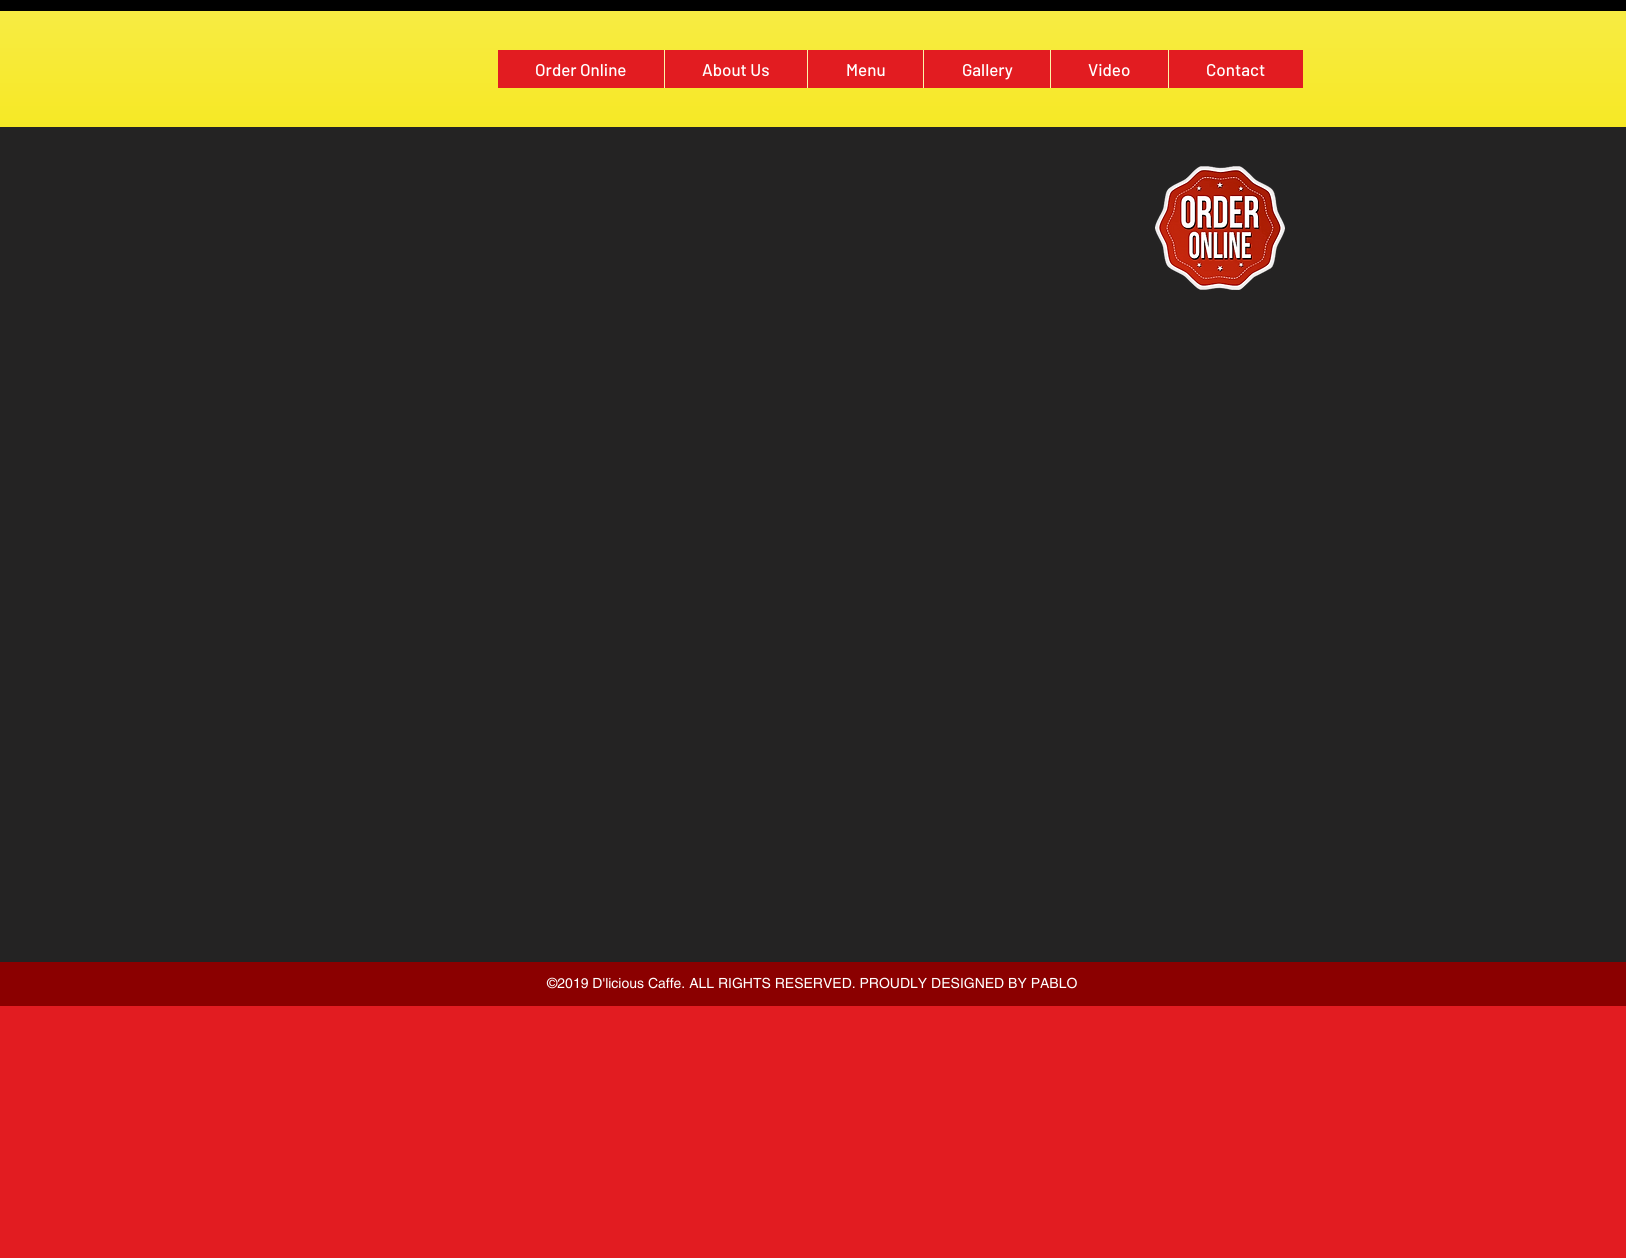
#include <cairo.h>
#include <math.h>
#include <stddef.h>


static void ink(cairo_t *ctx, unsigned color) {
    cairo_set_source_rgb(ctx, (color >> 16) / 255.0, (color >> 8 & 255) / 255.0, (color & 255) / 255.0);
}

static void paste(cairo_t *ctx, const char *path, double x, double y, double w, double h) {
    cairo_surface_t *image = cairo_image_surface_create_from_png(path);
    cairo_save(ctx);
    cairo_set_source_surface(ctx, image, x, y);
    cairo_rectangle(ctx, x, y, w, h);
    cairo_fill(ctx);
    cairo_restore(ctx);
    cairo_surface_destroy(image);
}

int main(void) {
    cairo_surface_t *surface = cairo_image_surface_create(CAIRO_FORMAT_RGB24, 1626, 1258);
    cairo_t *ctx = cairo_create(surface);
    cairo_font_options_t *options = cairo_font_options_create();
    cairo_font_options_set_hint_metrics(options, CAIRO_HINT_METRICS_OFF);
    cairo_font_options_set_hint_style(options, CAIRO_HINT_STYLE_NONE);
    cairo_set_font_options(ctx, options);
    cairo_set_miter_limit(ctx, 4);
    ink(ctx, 0xE21C21);
    cairo_paint(ctx);
    ink(ctx, 0xF5E505);
    cairo_rectangle(ctx, 0, 11, 1626, 116);
    cairo_fill(ctx);
    paste(ctx, "media/1.png", 0, 11, 1626, 116);
    ink(ctx, 0x000000);
    cairo_rectangle(ctx, 0, 0, 1626, 11);
    cairo_fill(ctx);
    ink(ctx, 0xE21C21);
    cairo_rectangle(ctx, 498, 50, 805, 38);
    cairo_fill(ctx);
    cairo_select_font_face(ctx, "Barlow Medium", CAIRO_FONT_SLANT_NORMAL, CAIRO_FONT_WEIGHT_NORMAL);
    cairo_set_font_size(ctx, 17);
    ink(ctx, 0xFFFFFF);
    cairo_move_to(ctx, 535, 76);
    cairo_show_text(ctx, "Order Online");
    ink(ctx, 0xFCF6A9);
    cairo_rectangle(ctx, 664, 50, 1, 38);
    cairo_fill(ctx);
    ink(ctx, 0xFFFFFF);
    cairo_move_to(ctx, 702, 76);
    cairo_show_text(ctx, "About Us");
    ink(ctx, 0xFCF6A9);
    cairo_rectangle(ctx, 807, 50, 1, 38);
    cairo_fill(ctx);
    ink(ctx, 0xFFFFFF);
    cairo_move_to(ctx, 846, 76);
    cairo_show_text(ctx, "Menu");
    ink(ctx, 0xFCF6A9);
    cairo_rectangle(ctx, 923, 50, 1, 38);
    cairo_fill(ctx);
    ink(ctx, 0xFFFFFF);
    cairo_move_to(ctx, 962, 76);
    cairo_show_text(ctx, "Gallery");
    ink(ctx, 0xFCF6A9);
    cairo_rectangle(ctx, 1050, 50, 1, 38);
    cairo_fill(ctx);
    ink(ctx, 0xFFFFFF);
    cairo_move_to(ctx, 1088, 76);
    cairo_show_text(ctx, "Video");
    ink(ctx, 0xFCF6A9);
    cairo_rectangle(ctx, 1168, 50, 1, 38);
    cairo_fill(ctx);
    ink(ctx, 0xFFFFFF);
    cairo_move_to(ctx, 1206, 76);
    cairo_show_text(ctx, "Contact");
    ink(ctx, 0x242323);
    cairo_rectangle(ctx, 0, 127, 1626, 835);
    cairo_fill(ctx);
    paste(ctx, "media/2.png", 1155, 166, 130, 124);
    ink(ctx, 0x8B0000);
    cairo_rectangle(ctx, 0, 962, 1626, 44);
    cairo_fill(ctx);
    cairo_select_font_face(ctx, "helvetica", CAIRO_FONT_SLANT_NORMAL, CAIRO_FONT_WEIGHT_NORMAL);
    cairo_set_font_size(ctx, 14);
    ink(ctx, 0xFFFFFF);
    cairo_move_to(ctx, 547, 988);
    cairo_show_text(ctx, "©2019 D'licious Caffe. ALL RIGHTS RESERVED. PROUDLY DESIGNED BY PABLO");
    cairo_surface_write_to_png(surface, "image.png");
    cairo_font_options_destroy(options);
    cairo_destroy(ctx);
    cairo_surface_destroy(surface);
    return 0;
}
